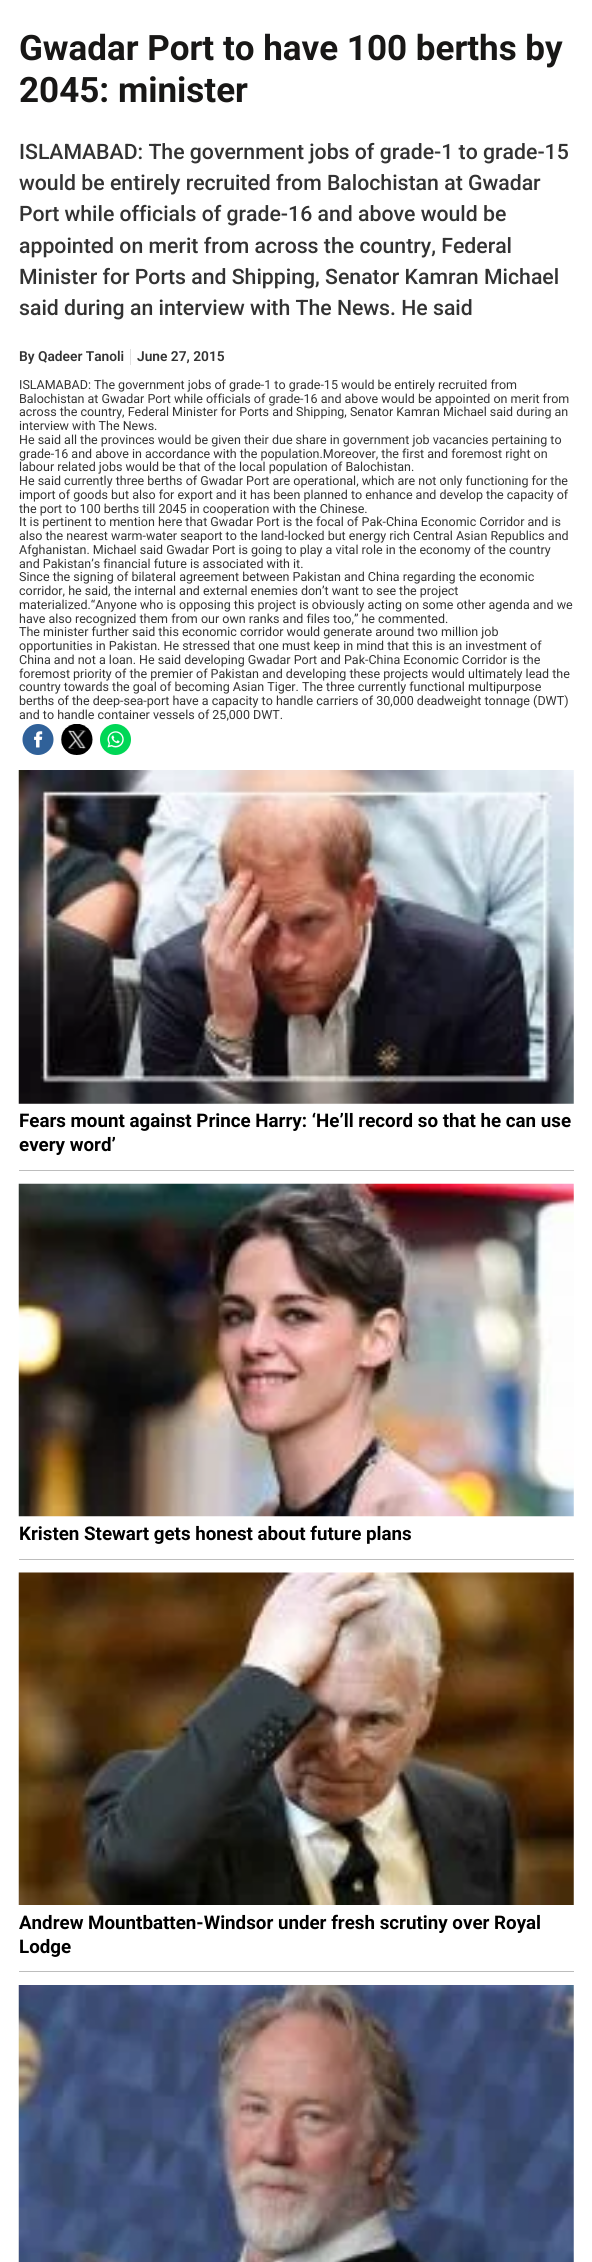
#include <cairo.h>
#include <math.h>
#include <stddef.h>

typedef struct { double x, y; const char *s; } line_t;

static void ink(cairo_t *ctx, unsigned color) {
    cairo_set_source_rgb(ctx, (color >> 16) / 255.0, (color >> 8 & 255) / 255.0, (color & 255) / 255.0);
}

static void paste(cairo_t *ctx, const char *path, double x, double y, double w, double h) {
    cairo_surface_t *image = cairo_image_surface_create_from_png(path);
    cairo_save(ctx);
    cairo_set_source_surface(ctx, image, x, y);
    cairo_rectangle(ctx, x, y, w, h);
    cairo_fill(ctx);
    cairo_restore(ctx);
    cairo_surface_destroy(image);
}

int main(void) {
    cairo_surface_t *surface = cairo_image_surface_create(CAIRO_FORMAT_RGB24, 592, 2262);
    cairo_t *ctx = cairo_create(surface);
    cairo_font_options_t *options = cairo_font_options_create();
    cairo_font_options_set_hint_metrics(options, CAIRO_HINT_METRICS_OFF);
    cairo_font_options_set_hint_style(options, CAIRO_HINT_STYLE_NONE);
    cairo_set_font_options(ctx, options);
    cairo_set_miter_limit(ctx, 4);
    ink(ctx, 0xFFFFFF);
    cairo_paint(ctx);
    cairo_select_font_face(ctx, "Roboto", CAIRO_FONT_SLANT_NORMAL, CAIRO_FONT_WEIGHT_BOLD);
    cairo_set_font_size(ctx, 35);
    ink(ctx, 0x181716);
    cairo_move_to(ctx, 19, 60);
    cairo_show_text(ctx, "Gwadar Port to have 100 berths by");
    cairo_move_to(ctx, 19, 102);
    cairo_show_text(ctx, "2045: minister");
    cairo_select_font_face(ctx, "Roboto Medium", CAIRO_FONT_SLANT_NORMAL, CAIRO_FONT_WEIGHT_NORMAL);
    cairo_set_font_size(ctx, 21.25);
    ink(ctx, 0x333333);
    {
        static const line_t items[] = {
            {19, 159, "ISLAMABAD: The government jobs of grade-1 to grade-15"},
            {19, 190, "would be entirely recruited from Balochistan at Gwadar"},
            {19, 221, "Port while officials of grade-16 and above would be"},
            {19, 253, "appointed on merit from across the country, Federal"},
            {19, 284, "Minister for Ports and Shipping, Senator Kamran Michael"},
            {19, 315, "said during an interview with The News. He said"},
        };
        for (size_t i = 0; i < sizeof items / sizeof *items; i++) {
            cairo_move_to(ctx, items[i].x, items[i].y);
            cairo_show_text(ctx, items[i].s);
        }
    }
    ink(ctx, 0xDFDFDF);
    cairo_rectangle(ctx, 130, 349, 1, 16);
    cairo_fill(ctx);
    cairo_select_font_face(ctx, "Roboto SemiBold", CAIRO_FONT_SLANT_NORMAL, CAIRO_FONT_WEIGHT_NORMAL);
    cairo_set_font_size(ctx, 13.75);
    ink(ctx, 0x333333);
    cairo_move_to(ctx, 19, 361);
    cairo_show_text(ctx, "By Qadeer Tanoli");
    cairo_move_to(ctx, 137, 361);
    cairo_show_text(ctx, "June 27, 2015");
    cairo_select_font_face(ctx, "Roboto", CAIRO_FONT_SLANT_NORMAL, CAIRO_FONT_WEIGHT_NORMAL);
    cairo_set_font_size(ctx, 12.5);
    {
        static const line_t items[] = {
            {19, 389, "ISLAMABAD: The government jobs of grade-1 to grade-15 would be entirely recruited from"},
            {19, 403, "Balochistan at Gwadar Port while officials of grade-16 and above would be appointed on merit from"},
            {19, 416, "across the country, Federal Minister for Ports and Shipping, Senator Kamran Michael said during an"},
            {19, 430, "interview with The News."},
            {19, 444, "He said all the provinces would be given their due share in government job vacancies pertaining to"},
            {19, 458, "grade-16 and above in accordance with the population.Moreover, the first and foremost right on"},
            {19, 471, "labour related jobs would be that of the local population of Balochistan."},
            {19, 485, "He said currently three berths of Gwadar Port are operational, which are not only functioning for the"},
            {19, 499, "import of goods but also for export and it has been planned to enhance and develop the capacity of"},
            {19, 513, "the port to 100 berths till 2045 in cooperation with the Chinese."},
            {19, 526, "It is pertinent to mention here that Gwadar Port is the focal of Pak-China Economic Corridor and is"},
            {19, 540, "also the nearest warm-water seaport to the land-locked but energy rich Central Asian Republics and"},
            {19, 554, "Afghanistan. Michael said Gwadar Port is going to play a vital role in the economy of the country"},
            {19, 568, "and Pakistan’s financial future is associated with it."},
            {19, 581, "Since the signing of bilateral agreement between Pakistan and China regarding the economic"},
            {19, 595, "corridor, he said, the internal and external enemies don’t want to see the project"},
            {19, 609, "materialized.“Anyone who is opposing this project is obviously acting on some other agenda and we"},
            {19, 623, "have also recognized them from our own ranks and files too,” he commented."},
            {19, 636, "The minister further said this economic corridor would generate around two million job"},
            {19, 650, "opportunities in Pakistan. He stressed that one must keep in mind that this is an investment of"},
            {19, 664, "China and not a loan. He said developing Gwadar Port and Pak-China Economic Corridor is the"},
            {19, 678, "foremost priority of the premier of Pakistan and developing these projects would ultimately lead the"},
            {19, 691, "country towards the goal of becoming Asian Tiger. The three currently functional multipurpose"},
            {19, 705, "berths of the deep-sea-port have a capacity to handle carriers of 30,000 deadweight tonnage (DWT)"},
            {19, 719, "and to handle container vessels of 25,000 DWT."},
        };
        for (size_t i = 0; i < sizeof items / sizeof *items; i++) {
            cairo_move_to(ctx, items[i].x, items[i].y);
            cairo_show_text(ctx, items[i].s);
        }
    }
    paste(ctx, "media/1.png", 22, 724, 32, 31);
    paste(ctx, "media/2.png", 61, 724, 32, 31);
    paste(ctx, "media/3.png", 100, 724, 31, 31);
    ink(ctx, 0xBDBDBD);
    cairo_rectangle(ctx, 19, 1170, 555, 1);
    cairo_fill(ctx);
    paste(ctx, "media/4.png", 18, 770, 556, 334);
    cairo_select_font_face(ctx, "Roboto", CAIRO_FONT_SLANT_NORMAL, CAIRO_FONT_WEIGHT_BOLD);
    cairo_set_font_size(ctx, 18.75);
    ink(ctx, 0x000000);
    cairo_move_to(ctx, 19, 1127);
    cairo_show_text(ctx, "Fears mount against Prince Harry: ‘He’ll record so that he can use");
    cairo_move_to(ctx, 19, 1151);
    cairo_show_text(ctx, "every word’");
    ink(ctx, 0xBDBDBD);
    cairo_rectangle(ctx, 19, 1559, 555, 1);
    cairo_fill(ctx);
    paste(ctx, "media/5.png", 18, 1183, 556, 334);
    ink(ctx, 0x000000);
    cairo_move_to(ctx, 19, 1540);
    cairo_show_text(ctx, "Kristen Stewart gets honest about future plans");
    ink(ctx, 0xBDBDBD);
    cairo_rectangle(ctx, 19, 1971, 555, 1);
    cairo_fill(ctx);
    paste(ctx, "media/6.png", 18, 1572, 556, 333);
    ink(ctx, 0x000000);
    cairo_move_to(ctx, 19, 1929);
    cairo_show_text(ctx, "Andrew Mountbatten-Windsor under fresh scrutiny over Royal");
    cairo_move_to(ctx, 19, 1953);
    cairo_show_text(ctx, "Lodge");
    paste(ctx, "media/7.png", 18, 1985, 556, 277);
    cairo_surface_write_to_png(surface, "image.png");
    cairo_font_options_destroy(options);
    cairo_destroy(ctx);
    cairo_surface_destroy(surface);
    return 0;
}
